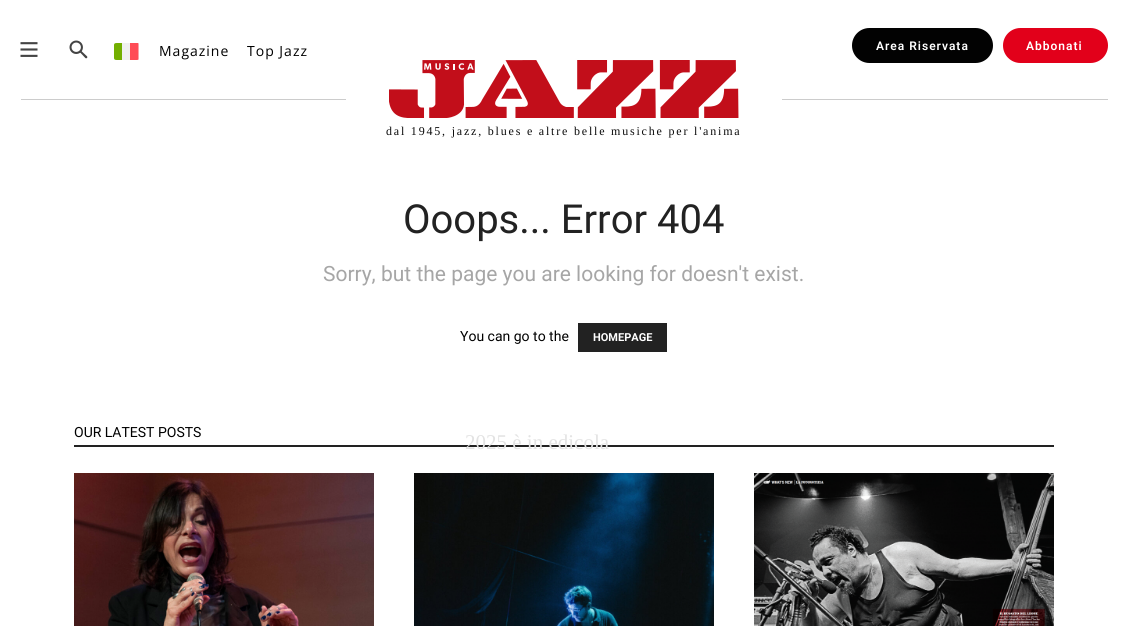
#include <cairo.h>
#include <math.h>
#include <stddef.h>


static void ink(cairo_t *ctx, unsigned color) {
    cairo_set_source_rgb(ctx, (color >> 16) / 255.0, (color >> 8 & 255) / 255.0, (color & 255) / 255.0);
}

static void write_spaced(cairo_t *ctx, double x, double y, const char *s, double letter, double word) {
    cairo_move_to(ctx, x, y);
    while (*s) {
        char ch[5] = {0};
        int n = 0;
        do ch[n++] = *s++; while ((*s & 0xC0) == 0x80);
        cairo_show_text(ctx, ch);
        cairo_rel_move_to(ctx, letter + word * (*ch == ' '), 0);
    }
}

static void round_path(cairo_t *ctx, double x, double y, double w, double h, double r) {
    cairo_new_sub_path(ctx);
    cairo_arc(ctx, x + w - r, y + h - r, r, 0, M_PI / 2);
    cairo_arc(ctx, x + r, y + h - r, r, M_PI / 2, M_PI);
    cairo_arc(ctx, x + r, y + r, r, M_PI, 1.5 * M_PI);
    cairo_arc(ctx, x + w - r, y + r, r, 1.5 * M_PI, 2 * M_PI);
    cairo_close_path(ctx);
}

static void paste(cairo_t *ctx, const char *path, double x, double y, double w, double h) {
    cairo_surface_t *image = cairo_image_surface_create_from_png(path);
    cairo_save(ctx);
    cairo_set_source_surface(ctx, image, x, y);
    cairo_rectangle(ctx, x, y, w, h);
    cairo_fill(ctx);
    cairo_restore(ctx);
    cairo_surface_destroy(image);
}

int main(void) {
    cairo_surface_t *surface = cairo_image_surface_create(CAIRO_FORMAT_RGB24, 1127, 626);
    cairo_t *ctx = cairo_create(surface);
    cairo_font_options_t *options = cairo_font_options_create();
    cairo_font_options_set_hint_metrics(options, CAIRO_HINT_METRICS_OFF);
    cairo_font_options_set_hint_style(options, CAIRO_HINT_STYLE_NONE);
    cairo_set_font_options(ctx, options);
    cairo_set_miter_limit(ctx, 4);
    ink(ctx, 0xFFFFFF);
    cairo_paint(ctx);
    ink(ctx, 0xCCCCCC);
    cairo_rectangle(ctx, 21, 99, 1087, 1);
    cairo_fill(ctx);
    paste(ctx, "media/1.png", 20, 42, 18, 15);
    paste(ctx, "media/2.png", 69, 40, 19, 19);
    ink(ctx, 0xF0F0F0);
    cairo_new_path(ctx);
    cairo_move_to(ctx, 138, 43);
    cairo_line_to(ctx, 115, 43);
    cairo_curve_to(ctx, 114.5, 43.5, 114, 44, 114, 45);
    cairo_line_to(ctx, 114, 58);
    cairo_curve_to(ctx, 114, 59, 114.5, 59.5, 115, 60);
    cairo_line_to(ctx, 138, 60);
    cairo_line_to(ctx, 138.5, 59.5);
    cairo_line_to(ctx, 138.5, 43.5);
    cairo_close_path(ctx);
    cairo_fill(ctx);
    cairo_save(ctx);
    cairo_rectangle(ctx, 114, 43, 25, 17);
    cairo_clip(ctx);
    ink(ctx, 0x73AF00);
    cairo_new_path(ctx);
    cairo_move_to(ctx, 122, 43);
    cairo_curve_to(ctx, 112.5, 43, 114, 42, 114, 51.5);
    cairo_curve_to(ctx, 114, 61, 112.5, 60, 122, 60);
    cairo_close_path(ctx);
    cairo_fill(ctx);
    ink(ctx, 0xFF4B55);
    cairo_new_path(ctx);
    cairo_move_to(ctx, 138, 43);
    cairo_line_to(ctx, 130, 43);
    cairo_line_to(ctx, 130, 60);
    cairo_curve_to(ctx, 131.5, 60, 137.5, 60.5, 138.5, 59.5);
    cairo_line_to(ctx, 138.5, 43.5);
    cairo_close_path(ctx);
    cairo_fill(ctx);
    cairo_restore(ctx);
    cairo_select_font_face(ctx, "Open Sans", CAIRO_FONT_SLANT_NORMAL, CAIRO_FONT_WEIGHT_NORMAL);
    cairo_set_font_size(ctx, 14);
    ink(ctx, 0x000000);
    write_spaced(ctx, 159, 56, "Magazine", 1, 0);
    write_spaced(ctx, 247, 56, "Top Jazz", 1, 0);
    ink(ctx, 0x020202);
    round_path(ctx, 852, 28, 141, 35, 17.5);
    cairo_fill(ctx);
    cairo_select_font_face(ctx, "Roboto SemiBold", CAIRO_FONT_SLANT_NORMAL, CAIRO_FONT_WEIGHT_NORMAL);
    cairo_set_font_size(ctx, 12);
    ink(ctx, 0xFFFFFF);
    write_spaced(ctx, 876, 50, "Area Riservata", 1, 0);
    ink(ctx, 0xE2001A);
    round_path(ctx, 1003, 28, 105, 35, 17.5);
    cairo_fill(ctx);
    ink(ctx, 0xFFFFFF);
    write_spaced(ctx, 1026, 50, "Abbonati", 1, 0);
    cairo_rectangle(ctx, 346, 99, 436, 1);
    cairo_fill(ctx);
    paste(ctx, "media/3.png", 389, 60, 350, 58);
    cairo_select_font_face(ctx, "Liberation Serif", CAIRO_FONT_SLANT_NORMAL, CAIRO_FONT_WEIGHT_NORMAL);
    ink(ctx, 0x0A0A0A);
    write_spaced(ctx, 386, 135, "dal 1945, jazz, blues e altre belle musiche per l'anima", 1.8, 0);
    cairo_select_font_face(ctx, "Roboto", CAIRO_FONT_SLANT_NORMAL, CAIRO_FONT_WEIGHT_NORMAL);
    cairo_set_font_size(ctx, 40);
    ink(ctx, 0x222222);
    cairo_move_to(ctx, 403, 233);
    cairo_show_text(ctx, "Ooops... Error 404");
    cairo_set_font_size(ctx, 21);
    ink(ctx, 0xA6A6A6);
    cairo_move_to(ctx, 323, 281);
    cairo_show_text(ctx, "Sorry, but the page you are looking for doesn't exist.");
    cairo_set_font_size(ctx, 14);
    ink(ctx, 0x000000);
    cairo_move_to(ctx, 460, 341);
    cairo_show_text(ctx, "You can go to the");
    ink(ctx, 0x222222);
    cairo_rectangle(ctx, 578, 323, 89, 29);
    cairo_fill(ctx);
    cairo_select_font_face(ctx, "Roboto", CAIRO_FONT_SLANT_NORMAL, CAIRO_FONT_WEIGHT_BOLD);
    cairo_set_font_size(ctx, 11);
    ink(ctx, 0xFFFFFF);
    cairo_move_to(ctx, 593, 341);
    cairo_show_text(ctx, "HOMEPAGE");
    ink(ctx, 0x222222);
    cairo_rectangle(ctx, 74, 445, 980, 2);
    cairo_fill(ctx);
    cairo_select_font_face(ctx, "Roboto", CAIRO_FONT_SLANT_NORMAL, CAIRO_FONT_WEIGHT_NORMAL);
    cairo_set_font_size(ctx, 14);
    ink(ctx, 0x000000);
    cairo_move_to(ctx, 74, 437);
    cairo_show_text(ctx, "OUR LATEST POSTS");
    paste(ctx, "media/4.png", 74, 473, 300, 153);
    paste(ctx, "media/5.png", 414, 473, 300, 153);
    paste(ctx, "media/6.png", 754, 473, 300, 153);
    cairo_select_font_face(ctx, "Liberation Serif", CAIRO_FONT_SLANT_NORMAL, CAIRO_FONT_WEIGHT_NORMAL);
    cairo_set_font_size(ctx, 21);
    ink(ctx, 0xE3E3E3);
    cairo_move_to(ctx, 465, 449);
    cairo_show_text(ctx, "2025 è in edicola");
    cairo_surface_write_to_png(surface, "image.png");
    cairo_font_options_destroy(options);
    cairo_destroy(ctx);
    cairo_surface_destroy(surface);
    return 0;
}
